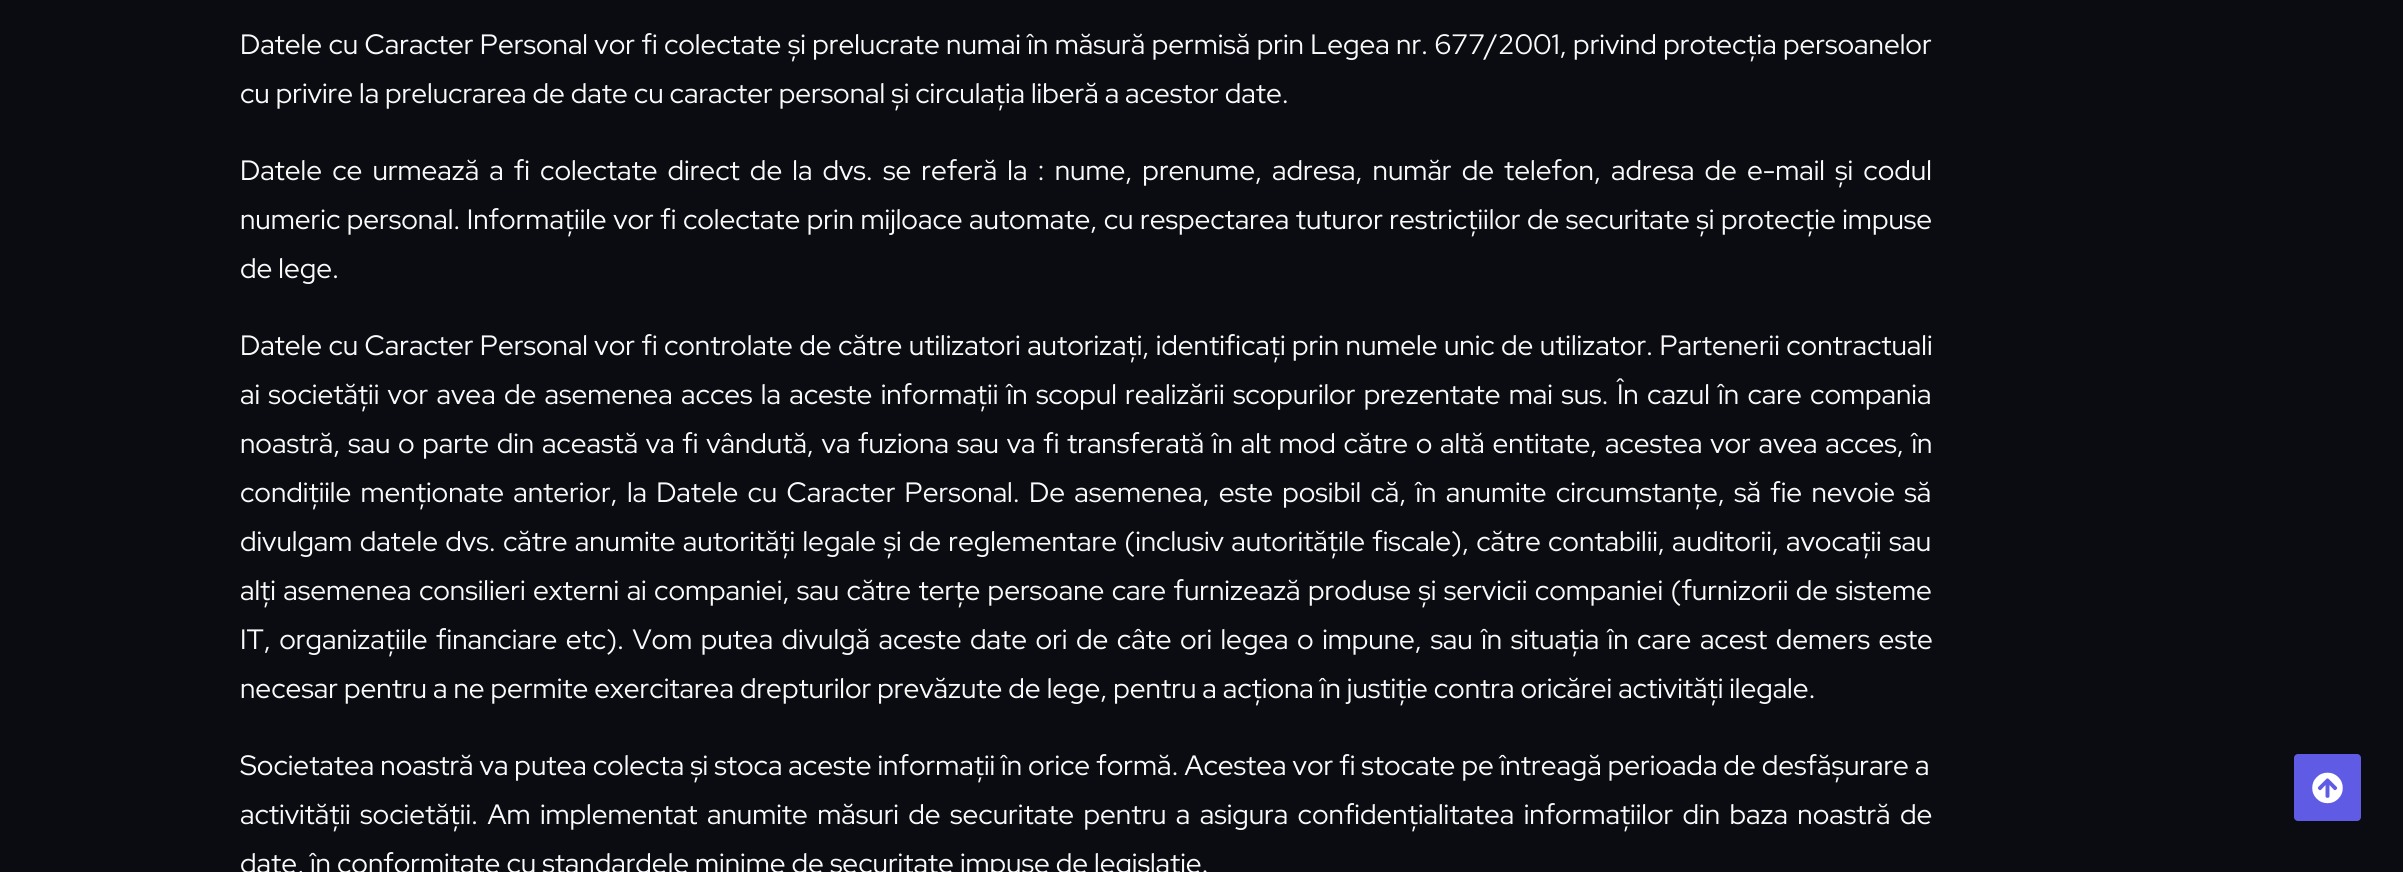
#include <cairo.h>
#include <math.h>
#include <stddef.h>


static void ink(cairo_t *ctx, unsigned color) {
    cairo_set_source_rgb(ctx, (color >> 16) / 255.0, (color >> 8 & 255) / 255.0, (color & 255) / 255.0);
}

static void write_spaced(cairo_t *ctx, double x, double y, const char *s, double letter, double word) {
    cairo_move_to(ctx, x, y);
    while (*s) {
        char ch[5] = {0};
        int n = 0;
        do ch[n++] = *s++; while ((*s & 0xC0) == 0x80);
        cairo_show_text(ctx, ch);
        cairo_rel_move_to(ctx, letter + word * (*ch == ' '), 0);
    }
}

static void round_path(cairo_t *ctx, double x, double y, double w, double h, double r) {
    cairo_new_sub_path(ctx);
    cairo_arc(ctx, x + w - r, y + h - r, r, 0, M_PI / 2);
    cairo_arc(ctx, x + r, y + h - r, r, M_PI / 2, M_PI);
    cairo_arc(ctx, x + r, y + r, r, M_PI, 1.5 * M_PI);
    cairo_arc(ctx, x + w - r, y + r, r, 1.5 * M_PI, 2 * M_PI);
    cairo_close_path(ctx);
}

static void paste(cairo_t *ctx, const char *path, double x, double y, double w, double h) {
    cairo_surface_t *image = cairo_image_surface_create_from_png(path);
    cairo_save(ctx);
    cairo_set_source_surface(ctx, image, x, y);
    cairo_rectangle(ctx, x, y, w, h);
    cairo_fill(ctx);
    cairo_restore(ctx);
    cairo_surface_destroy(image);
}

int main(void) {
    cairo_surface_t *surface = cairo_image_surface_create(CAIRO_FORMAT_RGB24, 2403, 872);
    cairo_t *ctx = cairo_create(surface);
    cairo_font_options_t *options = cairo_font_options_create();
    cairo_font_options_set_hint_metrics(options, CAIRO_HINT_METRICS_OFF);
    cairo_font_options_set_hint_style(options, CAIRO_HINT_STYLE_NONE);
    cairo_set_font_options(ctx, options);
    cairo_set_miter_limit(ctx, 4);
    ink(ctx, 0x0A0C11);
    cairo_paint(ctx);
    cairo_select_font_face(ctx, "Red Hat Display", CAIRO_FONT_SLANT_NORMAL, CAIRO_FONT_WEIGHT_NORMAL);
    cairo_set_font_size(ctx, 28);
    ink(ctx, 0xFAFAFA);
    write_spaced(ctx, 240, 54, "Datele cu Caracter Personal vor fi colectate și prelucrate numai în măsură permisă prin Legea nr. 677/2001, privind protecția persoanelor", 0, 0.4);
    cairo_move_to(ctx, 240, 103);
    cairo_show_text(ctx, "cu privire la prelucrarea de date cu caracter personal și circulația liberă a acestor date.");
    write_spaced(ctx, 240, 180, "Datele ce urmează a fi colectate direct de la dvs. se referă la : nume, prenume, adresa, număr de telefon, adresa de e-mail și codul", 0, 4.1);
    write_spaced(ctx, 240, 229, "numeric personal. Informațiile vor fi colectate prin mijloace automate, cu respectarea tuturor restricțiilor de securitate și protecție impuse", 0, 0.5);
    cairo_move_to(ctx, 240, 278);
    cairo_show_text(ctx, "de lege.");
    write_spaced(ctx, 240, 355, "Datele cu Caracter Personal vor fi controlate de către utilizatori autorizați, identificați prin numele unic de utilizator. Partenerii contractuali", 0, 0.4);
    write_spaced(ctx, 240, 404, "ai societății vor avea de asemenea acces la aceste informații în scopul realizării scopurilor prezentate mai sus. În cazul în care compania", 0, 2.3);
    write_spaced(ctx, 240, 453, "noastră, sau o parte din această va fi vândută, va fuziona sau va fi transferată în alt mod către o altă entitate, acestea vor avea acces, în", 0, 1.7);
    write_spaced(ctx, 240, 502, "condițiile menționate anterior, la Datele cu Caracter Personal. De asemenea, este posibil că, în anumite circumstanțe, să fie nevoie să", 0, 3.25);
    write_spaced(ctx, 240, 551, "divulgam datele dvs. către anumite autorități legale și de reglementare (inclusiv autoritățile fiscale), către contabilii, auditorii, avocații sau", 0, 1.25);
    write_spaced(ctx, 240, 600, "alți asemenea consilieri externi ai companiei, sau către terțe persoane care furnizează produse și servicii companiei (furnizorii de sisteme", 0, 1.4);
    write_spaced(ctx, 240, 649, "IT, organizațiile financiare etc). Vom putea divulgă aceste date ori de câte ori legea o impune, sau în situația în care acest demers este", 0, 2.5);
    cairo_move_to(ctx, 240, 698);
    cairo_show_text(ctx, "necesar pentru a ne permite exercitarea drepturilor prevăzute de lege, pentru a acționa în justiție contra oricărei activități ilegale.");
    cairo_move_to(ctx, 240, 775);
    cairo_show_text(ctx, "Societatea noastră va putea colecta și stoca aceste informații în orice formă. Acestea vor fi stocate pe întreagă perioada de desfășurare a");
    write_spaced(ctx, 240, 824, "activității societății. Am implementat anumite măsuri de securitate pentru a asigura confidențialitatea informațiilor din baza noastră de", 0, 3.4);
    cairo_move_to(ctx, 240, 873);
    cairo_show_text(ctx, "date, în conformitate cu standardele minime de securitate impuse de legislație.");
    ink(ctx, 0x605BE5);
    round_path(ctx, 2294, 754, 67, 67, 4);
    cairo_fill(ctx);
    paste(ctx, "media/1.png", 2312, 772, 31, 32);
    cairo_surface_write_to_png(surface, "image.png");
    cairo_font_options_destroy(options);
    cairo_destroy(ctx);
    cairo_surface_destroy(surface);
    return 0;
}
